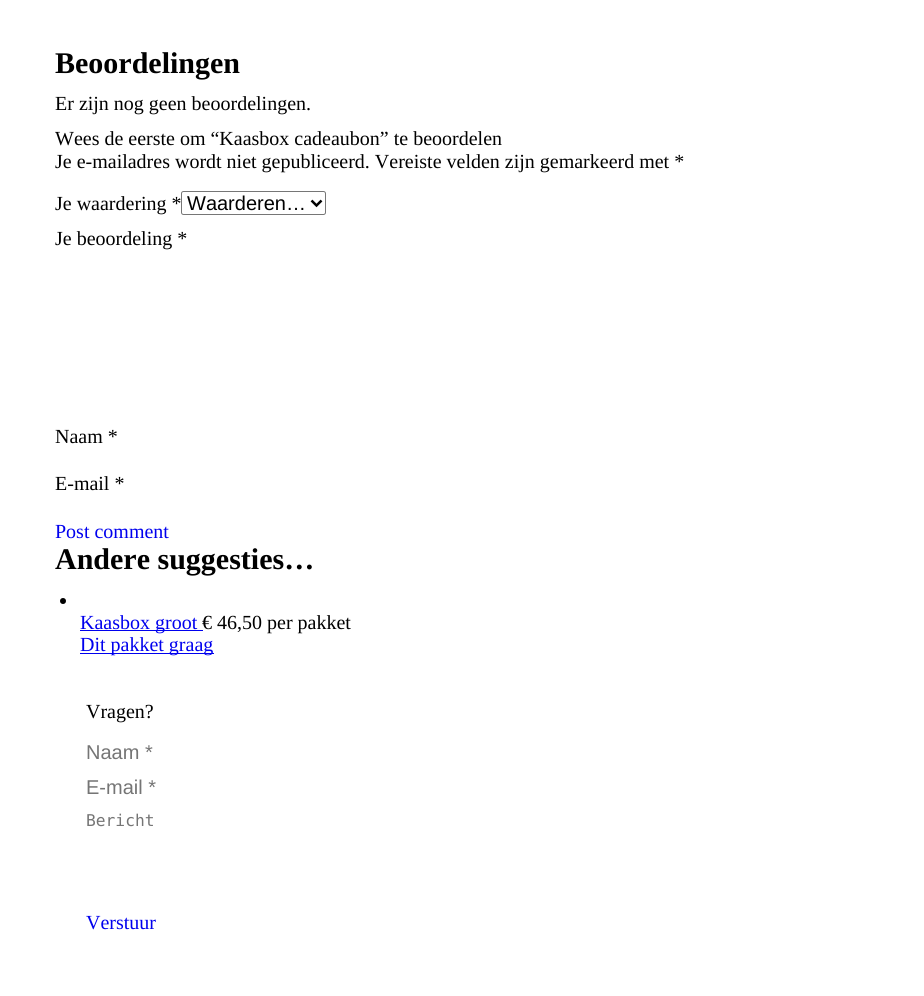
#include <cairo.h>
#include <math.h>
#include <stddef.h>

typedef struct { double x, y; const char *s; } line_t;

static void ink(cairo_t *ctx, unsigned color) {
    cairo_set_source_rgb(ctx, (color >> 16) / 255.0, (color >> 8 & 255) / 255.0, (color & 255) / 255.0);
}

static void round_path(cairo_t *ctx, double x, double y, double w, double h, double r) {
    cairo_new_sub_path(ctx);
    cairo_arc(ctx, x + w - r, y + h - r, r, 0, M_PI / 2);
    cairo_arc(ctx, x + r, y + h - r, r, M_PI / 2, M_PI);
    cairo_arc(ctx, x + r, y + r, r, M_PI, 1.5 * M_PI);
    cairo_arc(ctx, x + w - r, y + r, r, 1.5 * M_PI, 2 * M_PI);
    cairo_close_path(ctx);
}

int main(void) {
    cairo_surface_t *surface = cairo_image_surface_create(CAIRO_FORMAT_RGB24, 924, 996);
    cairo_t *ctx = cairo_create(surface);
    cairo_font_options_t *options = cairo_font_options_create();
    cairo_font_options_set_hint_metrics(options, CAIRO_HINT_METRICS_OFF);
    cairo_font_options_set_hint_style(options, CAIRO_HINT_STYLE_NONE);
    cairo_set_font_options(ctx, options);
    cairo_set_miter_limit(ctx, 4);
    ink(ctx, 0xFFFFFF);
    cairo_paint(ctx);
    cairo_select_font_face(ctx, "Liberation Serif", CAIRO_FONT_SLANT_NORMAL, CAIRO_FONT_WEIGHT_BOLD);
    cairo_set_font_size(ctx, 30);
    ink(ctx, 0x000000);
    cairo_move_to(ctx, 55, 73);
    cairo_show_text(ctx, "Beoordelingen");
    cairo_select_font_face(ctx, "Liberation Serif", CAIRO_FONT_SLANT_NORMAL, CAIRO_FONT_WEIGHT_NORMAL);
    cairo_set_font_size(ctx, 20);
    {
        static const line_t items[] = {
            {55, 110, "Er zijn nog geen beoordelingen."},
            {55, 145, "Wees de eerste om “Kaasbox cadeaubon” te beoordelen"},
            {55, 168, "Je e-mailadres wordt niet gepubliceerd. Vereiste velden zijn gemarkeerd met *"},
            {55, 210, "Je waardering *"},
        };
        for (size_t i = 0; i < sizeof items / sizeof *items; i++) {
            cairo_move_to(ctx, items[i].x, items[i].y);
            cairo_show_text(ctx, items[i].s);
        }
    }
    round_path(ctx, 181.5, 191.5, 144, 23, 2);
    ink(ctx, 0x767676);
    cairo_set_line_width(ctx, 1);
    cairo_stroke(ctx);
    cairo_new_path(ctx);
    cairo_move_to(ctx, 311.5, 200.5);
    cairo_line_to(ctx, 316.5, 205.5);
    cairo_line_to(ctx, 321.5, 200.5);
    ink(ctx, 0x000000);
    cairo_set_line_width(ctx, 2.5);
    cairo_stroke(ctx);
    cairo_select_font_face(ctx, "Liberation Sans", CAIRO_FONT_SLANT_NORMAL, CAIRO_FONT_WEIGHT_NORMAL);
    cairo_move_to(ctx, 187, 210);
    cairo_show_text(ctx, "Waarderen…");
    cairo_select_font_face(ctx, "Liberation Serif", CAIRO_FONT_SLANT_NORMAL, CAIRO_FONT_WEIGHT_NORMAL);
    {
        static const line_t items[] = {
            {55, 245, "Je beoordeling *"},
            {55, 443, "Naam *"},
            {55, 490, "E-mail *"},
        };
        for (size_t i = 0; i < sizeof items / sizeof *items; i++) {
            cairo_move_to(ctx, items[i].x, items[i].y);
            cairo_show_text(ctx, items[i].s);
        }
    }
    ink(ctx, 0x0000EE);
    cairo_move_to(ctx, 55, 538);
    cairo_show_text(ctx, "Post comment");
    cairo_select_font_face(ctx, "Liberation Serif", CAIRO_FONT_SLANT_NORMAL, CAIRO_FONT_WEIGHT_BOLD);
    cairo_set_font_size(ctx, 30);
    ink(ctx, 0x000000);
    cairo_move_to(ctx, 55, 569);
    cairo_show_text(ctx, "Andere suggesties…");
    cairo_new_path(ctx);
    cairo_arc(ctx, 63, 601, 3, 0, 2 * M_PI);
    cairo_fill(ctx);
    ink(ctx, 0x0000EE);
    cairo_rectangle(ctx, 80, 630, 123, 1);
    cairo_fill(ctx);
    cairo_select_font_face(ctx, "Liberation Serif", CAIRO_FONT_SLANT_NORMAL, CAIRO_FONT_WEIGHT_NORMAL);
    cairo_set_font_size(ctx, 20);
    cairo_move_to(ctx, 80, 629);
    cairo_show_text(ctx, "Kaasbox groot");
    ink(ctx, 0x000000);
    cairo_move_to(ctx, 202, 629);
    cairo_show_text(ctx, "€ 46,50 per pakket");
    ink(ctx, 0x0000EE);
    cairo_rectangle(ctx, 80, 653, 134, 1);
    cairo_fill(ctx);
    cairo_move_to(ctx, 80, 651);
    cairo_show_text(ctx, "Dit pakket graag");
    ink(ctx, 0x000000);
    cairo_move_to(ctx, 86, 718);
    cairo_show_text(ctx, "Vragen?");
    cairo_select_font_face(ctx, "Liberation Sans", CAIRO_FONT_SLANT_NORMAL, CAIRO_FONT_WEIGHT_NORMAL);
    ink(ctx, 0x757575);
    cairo_move_to(ctx, 86, 759);
    cairo_show_text(ctx, "Naam *");
    cairo_move_to(ctx, 86, 794);
    cairo_show_text(ctx, "E-mail *");
    cairo_select_font_face(ctx, "DejaVu Sans Mono", CAIRO_FONT_SLANT_NORMAL, CAIRO_FONT_WEIGHT_NORMAL);
    cairo_set_font_size(ctx, 16.25);
    cairo_move_to(ctx, 86, 826);
    cairo_show_text(ctx, "Bericht");
    cairo_select_font_face(ctx, "Liberation Serif", CAIRO_FONT_SLANT_NORMAL, CAIRO_FONT_WEIGHT_NORMAL);
    cairo_set_font_size(ctx, 20);
    ink(ctx, 0x0000EE);
    cairo_move_to(ctx, 86, 929);
    cairo_show_text(ctx, "Verstuur");
    cairo_surface_write_to_png(surface, "image.png");
    cairo_font_options_destroy(options);
    cairo_destroy(ctx);
    cairo_surface_destroy(surface);
    return 0;
}
